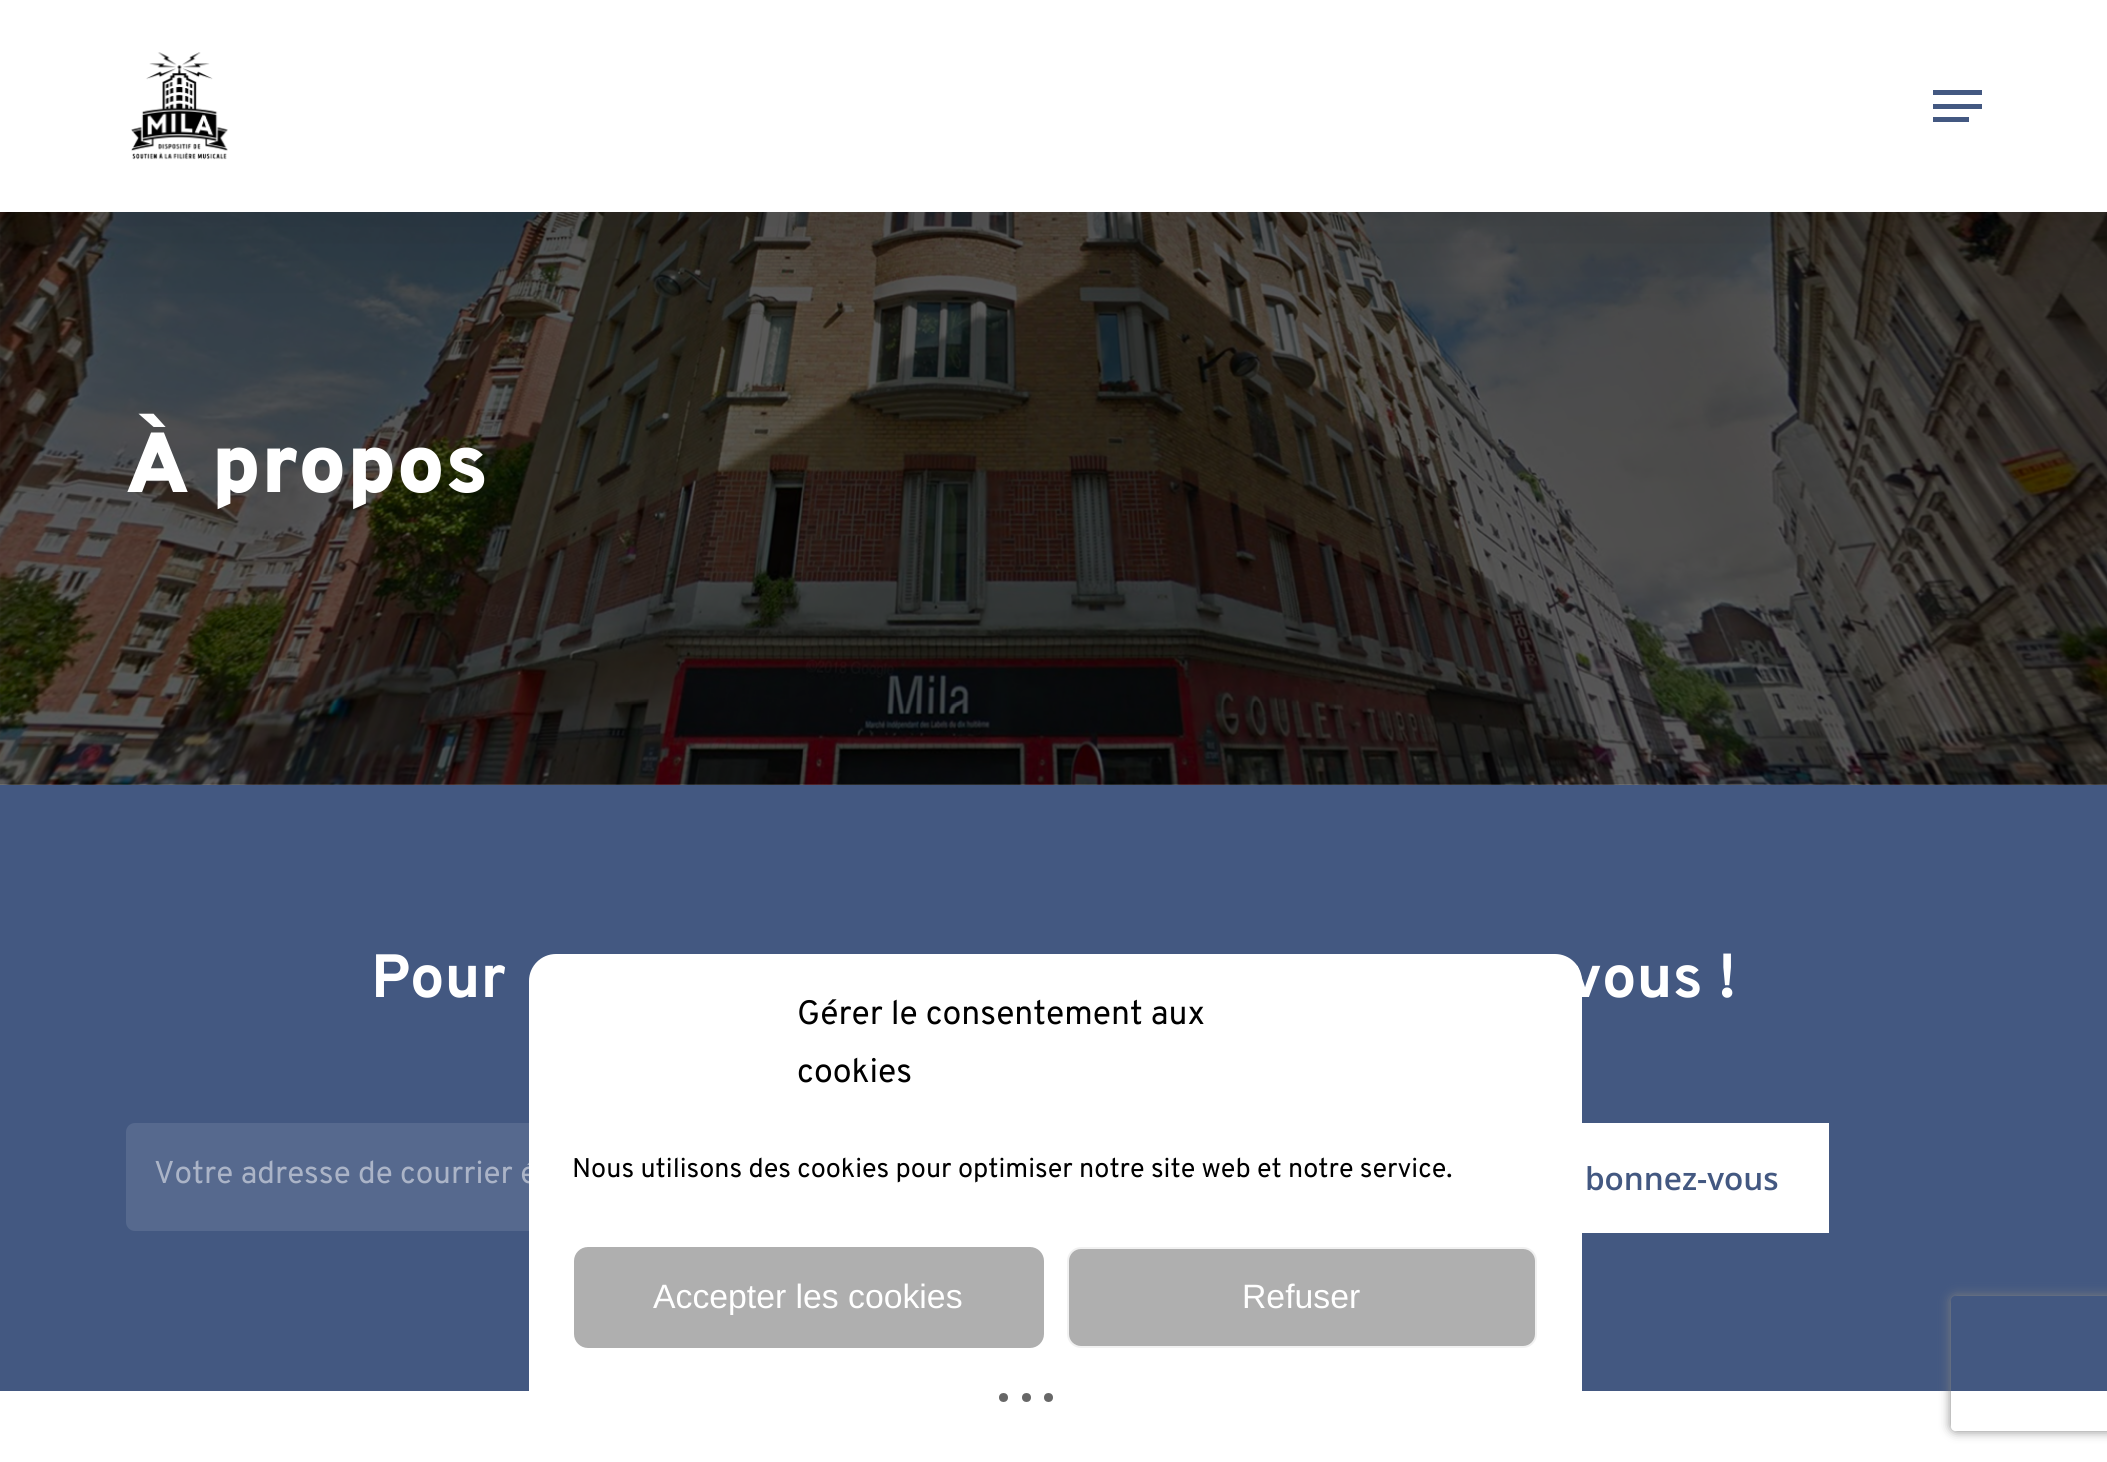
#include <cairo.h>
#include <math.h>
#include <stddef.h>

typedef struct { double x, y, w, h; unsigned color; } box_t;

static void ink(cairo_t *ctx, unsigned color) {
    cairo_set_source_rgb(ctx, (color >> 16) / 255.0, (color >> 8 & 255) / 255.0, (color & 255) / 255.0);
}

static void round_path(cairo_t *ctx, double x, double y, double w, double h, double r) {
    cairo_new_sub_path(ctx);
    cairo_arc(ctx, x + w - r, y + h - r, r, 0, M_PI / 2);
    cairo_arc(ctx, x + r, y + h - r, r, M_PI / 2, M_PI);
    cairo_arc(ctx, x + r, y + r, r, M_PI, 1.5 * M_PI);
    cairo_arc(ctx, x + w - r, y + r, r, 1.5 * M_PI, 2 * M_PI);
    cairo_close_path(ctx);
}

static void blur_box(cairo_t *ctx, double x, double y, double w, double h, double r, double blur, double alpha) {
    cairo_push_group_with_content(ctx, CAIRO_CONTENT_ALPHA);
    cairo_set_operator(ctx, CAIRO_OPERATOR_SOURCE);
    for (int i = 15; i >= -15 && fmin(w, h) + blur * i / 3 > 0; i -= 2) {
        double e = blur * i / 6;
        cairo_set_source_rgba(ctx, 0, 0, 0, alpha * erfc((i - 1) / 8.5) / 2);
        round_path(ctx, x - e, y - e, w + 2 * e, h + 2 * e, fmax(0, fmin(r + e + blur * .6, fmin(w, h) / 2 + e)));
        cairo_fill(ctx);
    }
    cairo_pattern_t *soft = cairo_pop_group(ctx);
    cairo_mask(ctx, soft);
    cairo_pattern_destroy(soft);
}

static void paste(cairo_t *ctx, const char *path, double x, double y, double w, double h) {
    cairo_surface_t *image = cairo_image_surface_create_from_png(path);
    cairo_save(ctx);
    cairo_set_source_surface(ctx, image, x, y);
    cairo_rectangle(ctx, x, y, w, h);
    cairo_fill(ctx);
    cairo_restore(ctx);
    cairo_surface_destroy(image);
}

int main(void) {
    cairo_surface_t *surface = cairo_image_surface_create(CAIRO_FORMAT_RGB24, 2107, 1462);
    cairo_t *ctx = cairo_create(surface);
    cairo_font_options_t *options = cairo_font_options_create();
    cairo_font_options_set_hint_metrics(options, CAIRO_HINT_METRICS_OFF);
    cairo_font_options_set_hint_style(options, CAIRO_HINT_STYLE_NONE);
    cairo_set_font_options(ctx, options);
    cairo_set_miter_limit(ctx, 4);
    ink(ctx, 0xFFFFFF);
    cairo_paint(ctx);
    paste(ctx, "media/2.png", 0, 212, 2107, 573);
    ink(ctx, 0x000000);
    blur_box(ctx, 0, 7, 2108, 211, 0, 50.5, 0.15);
    ink(ctx, 0xFFFFFF);
    cairo_rectangle(ctx, 0, 0, 2107, 212);
    cairo_fill(ctx);
    paste(ctx, "media/1.png", 131, 52, 97, 108);
    {
        static const box_t items[] = {
            {1933, 90, 49, 5, 0x435881},
            {1933, 117, 36, 5, 0x435881},
            {1933, 104, 49, 5, 0x435881},
        };
        for (size_t i = 0; i < sizeof items / sizeof *items; i++) {
            ink(ctx, items[i].color);
            cairo_rectangle(ctx, items[i].x, items[i].y, items[i].w, items[i].h);
            cairo_fill(ctx);
        }
    }
    cairo_select_font_face(ctx, "Overpass Black", CAIRO_FONT_SLANT_NORMAL, CAIRO_FONT_WEIGHT_NORMAL);
    cairo_set_font_size(ctx, 85);
    ink(ctx, 0xFFFFFF);
    cairo_move_to(ctx, 126, 492);
    cairo_show_text(ctx, "À propos");
    ink(ctx, 0x435881);
    cairo_rectangle(ctx, 0, 785, 2107, 606);
    cairo_fill(ctx);
    cairo_select_font_face(ctx, "Overpass", CAIRO_FONT_SLANT_NORMAL, CAIRO_FONT_WEIGHT_BOLD);
    cairo_set_font_size(ctx, 61);
    ink(ctx, 0xFFFFFF);
    cairo_move_to(ctx, 371, 997);
    cairo_show_text(ctx, "Pour");
    cairo_move_to(ctx, 1568, 997);
    cairo_show_text(ctx, "vous !");
    ink(ctx, 0x56698E);
    round_path(ctx, 126, 1123, 1080, 108, 9);
    cairo_fill(ctx);
    cairo_select_font_face(ctx, "Overpass", CAIRO_FONT_SLANT_NORMAL, CAIRO_FONT_WEIGHT_NORMAL);
    cairo_set_font_size(ctx, 31.5);
    ink(ctx, 0xABB4C7);
    cairo_move_to(ctx, 154, 1183);
    cairo_show_text(ctx, "Votre adresse de courrier é");
    ink(ctx, 0xFFFFFF);
    cairo_rectangle(ctx, 1582, 1123, 247, 110);
    cairo_fill(ctx);
    cairo_select_font_face(ctx, "Open Sans SemiBold", CAIRO_FONT_SLANT_NORMAL, CAIRO_FONT_WEIGHT_NORMAL);
    ink(ctx, 0x435881);
    cairo_move_to(ctx, 1585, 1190);
    cairo_show_text(ctx, "bonnez-vous");
    ink(ctx, 0xFFFFFF);
    round_path(ctx, 529, 954, 1053, 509, 27);
    cairo_fill(ctx);
    cairo_select_font_face(ctx, "Overpass", CAIRO_FONT_SLANT_NORMAL, CAIRO_FONT_WEIGHT_NORMAL);
    cairo_set_font_size(ctx, 33.75);
    ink(ctx, 0x000000);
    cairo_move_to(ctx, 797, 1024);
    cairo_show_text(ctx, "Gérer le consentement aux");
    cairo_move_to(ctx, 797, 1082);
    cairo_show_text(ctx, "cookies");
    cairo_set_font_size(ctx, 27);
    cairo_move_to(ctx, 572, 1177);
    cairo_show_text(ctx, "Nous utilisons des cookies pour optimiser notre site web et notre service.");
    ink(ctx, 0xAFAFAF);
    round_path(ctx, 575, 1248, 468, 99, 13);
    cairo_fill_preserve(ctx);
    cairo_stroke(ctx);
    cairo_select_font_face(ctx, "Liberation Sans", CAIRO_FONT_SLANT_NORMAL, CAIRO_FONT_WEIGHT_NORMAL);
    cairo_set_font_size(ctx, 33.75);
    ink(ctx, 0xFFFFFF);
    cairo_move_to(ctx, 653, 1308);
    cairo_show_text(ctx, "Accepter les cookies");
    ink(ctx, 0xAFAFAF);
    round_path(ctx, 1068, 1248, 468, 99, 13);
    cairo_fill_preserve(ctx);
    ink(ctx, 0xF1F1F1);
    cairo_stroke(ctx);
    ink(ctx, 0xFFFFFF);
    cairo_move_to(ctx, 1242, 1308);
    cairo_show_text(ctx, "Refuser");
    ink(ctx, 0x676767);
    cairo_new_path(ctx);
    cairo_arc(ctx, 1003.5, 1397.5, 4.5, 0, 2 * M_PI);
    cairo_fill(ctx);
    cairo_arc(ctx, 1026.5, 1397.5, 4.5, 0, 2 * M_PI);
    cairo_fill(ctx);
    cairo_arc(ctx, 1048.5, 1397.5, 4.5, 0, 2 * M_PI);
    cairo_fill(ctx);
    cairo_save(ctx);
    cairo_set_fill_rule(ctx, CAIRO_FILL_RULE_EVEN_ODD);
    cairo_new_path(ctx);
    cairo_move_to(ctx, 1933, 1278);
    cairo_line_to(ctx, 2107, 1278);
    cairo_line_to(ctx, 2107, 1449);
    cairo_line_to(ctx, 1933, 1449);
    cairo_close_path(ctx);
    cairo_move_to(ctx, 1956, 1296);
    cairo_line_to(ctx, 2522, 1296);
    cairo_curve_to(ctx, 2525, 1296, 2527, 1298, 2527, 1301);
    cairo_line_to(ctx, 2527, 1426);
    cairo_curve_to(ctx, 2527, 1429, 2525, 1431, 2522, 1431);
    cairo_line_to(ctx, 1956, 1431);
    cairo_curve_to(ctx, 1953, 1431, 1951, 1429, 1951, 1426);
    cairo_line_to(ctx, 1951, 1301);
    cairo_curve_to(ctx, 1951, 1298, 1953, 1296, 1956, 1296);
    cairo_close_path(ctx);
    cairo_clip(ctx);
    ink(ctx, 0x808080);
    blur_box(ctx, 1951, 1296, 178, 135, 5, 5.5, 1);
    cairo_restore(ctx);
    cairo_surface_write_to_png(surface, "image.png");
    cairo_font_options_destroy(options);
    cairo_destroy(ctx);
    cairo_surface_destroy(surface);
    return 0;
}
